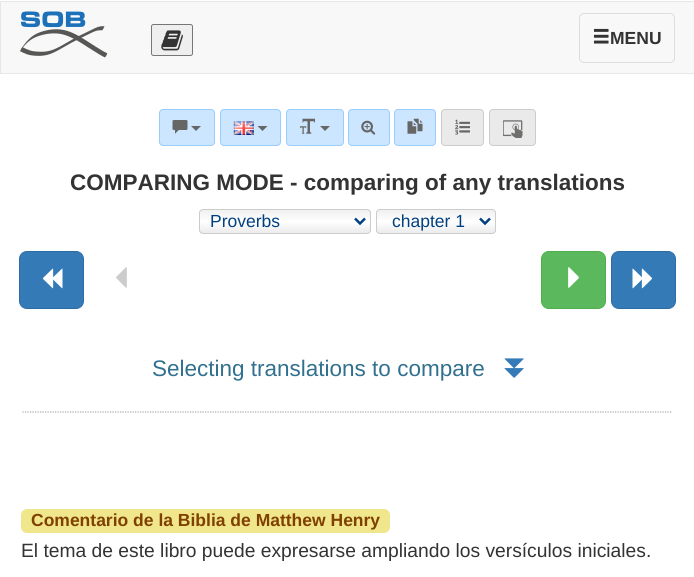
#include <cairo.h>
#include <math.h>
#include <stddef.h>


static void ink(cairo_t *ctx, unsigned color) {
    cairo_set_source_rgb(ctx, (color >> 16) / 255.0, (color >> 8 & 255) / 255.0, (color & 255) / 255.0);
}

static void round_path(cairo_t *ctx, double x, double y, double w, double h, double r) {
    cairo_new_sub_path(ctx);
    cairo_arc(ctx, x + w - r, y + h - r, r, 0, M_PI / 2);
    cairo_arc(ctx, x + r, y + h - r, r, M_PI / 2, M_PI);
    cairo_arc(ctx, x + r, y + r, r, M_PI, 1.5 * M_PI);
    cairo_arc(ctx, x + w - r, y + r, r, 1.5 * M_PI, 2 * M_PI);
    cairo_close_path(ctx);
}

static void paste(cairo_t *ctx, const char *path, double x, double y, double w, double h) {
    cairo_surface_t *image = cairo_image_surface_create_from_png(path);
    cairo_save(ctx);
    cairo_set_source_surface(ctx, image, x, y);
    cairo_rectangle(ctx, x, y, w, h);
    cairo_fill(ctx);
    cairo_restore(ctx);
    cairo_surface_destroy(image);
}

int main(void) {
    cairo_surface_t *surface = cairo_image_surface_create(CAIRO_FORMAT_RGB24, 694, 577);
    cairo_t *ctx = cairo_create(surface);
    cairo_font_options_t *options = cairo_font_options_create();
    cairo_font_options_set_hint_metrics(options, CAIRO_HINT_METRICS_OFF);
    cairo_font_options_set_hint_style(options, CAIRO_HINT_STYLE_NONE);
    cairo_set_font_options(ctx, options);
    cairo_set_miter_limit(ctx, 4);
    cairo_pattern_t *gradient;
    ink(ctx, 0xFFFFFF);
    cairo_paint(ctx);
    ink(ctx, 0xF8F8F8);
    cairo_rectangle(ctx, 0.5, 1.5, 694, 72);
    cairo_fill_preserve(ctx);
    ink(ctx, 0xE7E7E7);
    cairo_set_line_width(ctx, 1);
    cairo_stroke(ctx);
    paste(ctx, "media/1.png", 20, 11, 88, 47);
    ink(ctx, 0xEFEFEF);
    round_path(ctx, 151.5, 24.5, 41, 31, 2);
    cairo_fill_preserve(ctx);
    ink(ctx, 0x767676);
    cairo_stroke(ctx);
    paste(ctx, "media/2.png", 161, 30, 22, 21);
    round_path(ctx, 579.5, 13.5, 95, 49, 4.5);
    ink(ctx, 0xDDDDDD);
    cairo_stroke(ctx);
    paste(ctx, "media/3.png", 593, 28, 16, 16);
    cairo_select_font_face(ctx, "Liberation Sans", CAIRO_FONT_SLANT_NORMAL, CAIRO_FONT_WEIGHT_BOLD);
    cairo_set_font_size(ctx, 17.5);
    ink(ctx, 0x333333);
    cairo_move_to(ctx, 610, 44);
    cairo_show_text(ctx, "MENU");
    ink(ctx, 0xCCE6FF);
    round_path(ctx, 159.5, 109.5, 55, 36, 3.5);
    cairo_fill_preserve(ctx);
    ink(ctx, 0x99CCFF);
    cairo_stroke(ctx);
    paste(ctx, "media/4.png", 172, 120, 16, 14);
    ink(ctx, 0x666666);
    cairo_new_path(ctx);
    cairo_move_to(ctx, 191, 126);
    cairo_line_to(ctx, 201, 126);
    cairo_line_to(ctx, 196, 131);
    cairo_close_path(ctx);
    cairo_fill(ctx);
    ink(ctx, 0xCCE6FF);
    round_path(ctx, 220.5, 109.5, 60, 36, 3.5);
    cairo_fill_preserve(ctx);
    ink(ctx, 0x99CCFF);
    cairo_stroke(ctx);
    paste(ctx, "media/5.png", 233, 121, 21, 14);
    ink(ctx, 0x666666);
    cairo_new_path(ctx);
    cairo_move_to(ctx, 257.5, 126);
    cairo_line_to(ctx, 267.5, 126);
    cairo_line_to(ctx, 262.5, 131);
    cairo_close_path(ctx);
    cairo_fill(ctx);
    ink(ctx, 0xCCE6FF);
    round_path(ctx, 286.5, 109.5, 57, 36, 3.5);
    cairo_fill_preserve(ctx);
    ink(ctx, 0x99CCFF);
    cairo_stroke(ctx);
    paste(ctx, "media/6.png", 300, 118, 15, 16);
    ink(ctx, 0x666666);
    cairo_new_path(ctx);
    cairo_move_to(ctx, 320, 126);
    cairo_line_to(ctx, 330, 126);
    cairo_line_to(ctx, 325, 131);
    cairo_close_path(ctx);
    cairo_fill(ctx);
    ink(ctx, 0xCCE6FF);
    round_path(ctx, 348.5, 109.5, 41, 36, 3.5);
    cairo_fill_preserve(ctx);
    ink(ctx, 0x99CCFF);
    cairo_stroke(ctx);
    paste(ctx, "media/7.png", 361, 120, 15, 15);
    ink(ctx, 0xCCE6FF);
    round_path(ctx, 394.5, 109.5, 41, 36, 3.5);
    cairo_fill_preserve(ctx);
    ink(ctx, 0x99CCFF);
    cairo_stroke(ctx);
    paste(ctx, "media/8.png", 407, 118, 16, 16);
    ink(ctx, 0xEAEAEA);
    round_path(ctx, 441.5, 109.5, 42, 36, 3.5);
    cairo_fill_preserve(ctx);
    ink(ctx, 0xCCCCCC);
    cairo_stroke(ctx);
    paste(ctx, "media/9.png", 455, 119, 15, 16);
    ink(ctx, 0xEAEAEA);
    round_path(ctx, 489.5, 109.5, 46, 36, 3.5);
    cairo_fill_preserve(ctx);
    ink(ctx, 0xCCCCCC);
    cairo_stroke(ctx);
    paste(ctx, "media/10.png", 503, 120, 20, 18);
    cairo_set_font_size(ctx, 22.5);
    ink(ctx, 0x333333);
    cairo_move_to(ctx, 70, 190);
    cairo_show_text(ctx, "COMPARING MODE - comparing of any translations");
    cairo_save(ctx);
    round_path(ctx, 199, 209, 172, 25, 4);
    cairo_clip(ctx);
    gradient = cairo_pattern_create_linear(285, 210, 285, 233);
    cairo_pattern_add_color_stop_rgba(gradient, 0, 0.941, 0.941, 0.941, 1);
    cairo_pattern_add_color_stop_rgba(gradient, 0.5, 1, 1, 1, 1);
    cairo_pattern_add_color_stop_rgba(gradient, 1, 0.922, 0.922, 0.922, 1);
    cairo_set_source(ctx, gradient);
    cairo_pattern_destroy(gradient);
    cairo_rectangle(ctx, 199, 210, 172, 23);
    cairo_fill(ctx);
    cairo_restore(ctx);
    round_path(ctx, 199.5, 209.5, 171, 24, 3.5);
    ink(ctx, 0xCCCCCC);
    cairo_stroke(ctx);
    cairo_new_path(ctx);
    cairo_move_to(ctx, 355, 218.5);
    cairo_line_to(ctx, 360, 223.5);
    cairo_line_to(ctx, 365, 218.5);
    ink(ctx, 0x004080);
    cairo_set_line_width(ctx, 2.5);
    cairo_stroke(ctx);
    cairo_select_font_face(ctx, "Liberation Sans", CAIRO_FONT_SLANT_NORMAL, CAIRO_FONT_WEIGHT_NORMAL);
    cairo_set_font_size(ctx, 17.5);
    cairo_move_to(ctx, 210, 227);
    cairo_show_text(ctx, "Proverbs");
    cairo_save(ctx);
    round_path(ctx, 376, 209, 120, 25, 4);
    cairo_clip(ctx);
    gradient = cairo_pattern_create_linear(436, 210, 436, 233);
    cairo_pattern_add_color_stop_rgba(gradient, 0, 0.941, 0.941, 0.941, 1);
    cairo_pattern_add_color_stop_rgba(gradient, 0.5, 1, 1, 1, 1);
    cairo_pattern_add_color_stop_rgba(gradient, 1, 0.922, 0.922, 0.922, 1);
    cairo_set_source(ctx, gradient);
    cairo_pattern_destroy(gradient);
    cairo_rectangle(ctx, 376, 210, 120, 23);
    cairo_fill(ctx);
    cairo_restore(ctx);
    round_path(ctx, 376.5, 209.5, 119, 24, 3.5);
    ink(ctx, 0xCCCCCC);
    cairo_set_line_width(ctx, 1);
    cairo_stroke(ctx);
    cairo_new_path(ctx);
    cairo_move_to(ctx, 480, 218.5);
    cairo_line_to(ctx, 485, 223.5);
    cairo_line_to(ctx, 490, 218.5);
    ink(ctx, 0x004080);
    cairo_set_line_width(ctx, 2.5);
    cairo_stroke(ctx);
    cairo_move_to(ctx, 392, 227);
    cairo_show_text(ctx, "chapter 1");
    ink(ctx, 0x337AB7);
    round_path(ctx, 19.5, 251.5, 64, 57, 7.5);
    cairo_fill_preserve(ctx);
    ink(ctx, 0x2E6DA4);
    cairo_set_line_width(ctx, 1);
    cairo_stroke(ctx);
    paste(ctx, "media/11.png", 43, 268, 20, 21);
    paste(ctx, "media/12.png", 116, 267, 11, 21);
    ink(ctx, 0x5CB85C);
    round_path(ctx, 541.5, 251.5, 64, 57, 7.5);
    cairo_fill_preserve(ctx);
    ink(ctx, 0x4CAE4C);
    cairo_stroke(ctx);
    paste(ctx, "media/13.png", 568, 267, 11, 21);
    ink(ctx, 0x337AB7);
    round_path(ctx, 611.5, 251.5, 64, 57, 7.5);
    cairo_fill_preserve(ctx);
    ink(ctx, 0x2E6DA4);
    cairo_stroke(ctx);
    paste(ctx, "media/14.png", 632, 268, 20, 21);
    cairo_set_font_size(ctx, 22.5);
    ink(ctx, 0x31708F);
    cairo_move_to(ctx, 152, 376);
    cairo_show_text(ctx, "Selecting translations to compare");
    paste(ctx, "media/15.png", 504, 358, 20, 20);
    cairo_new_path(ctx);
    cairo_move_to(ctx, 22.5, 412);
    cairo_line_to(ctx, 672.5, 412);
    ink(ctx, 0xAAAAAA);
    cairo_set_line_width(ctx, 1.2);
    cairo_set_dash(ctx, (double[]){1.25, 1.25}, 2, 0);
    cairo_stroke(ctx);
    ink(ctx, 0xF0E68C);
    round_path(ctx, 21, 509, 369, 24, 6);
    cairo_fill(ctx);
    cairo_select_font_face(ctx, "Liberation Sans", CAIRO_FONT_SLANT_NORMAL, CAIRO_FONT_WEIGHT_BOLD);
    cairo_set_font_size(ctx, 17.5);
    ink(ctx, 0x804000);
    cairo_move_to(ctx, 31, 526);
    cairo_show_text(ctx, "Comentario de la Biblia de Matthew Henry");
    cairo_select_font_face(ctx, "Liberation Sans", CAIRO_FONT_SLANT_NORMAL, CAIRO_FONT_WEIGHT_NORMAL);
    cairo_set_font_size(ctx, 19.25);
    ink(ctx, 0x333333);
    cairo_move_to(ctx, 21, 557);
    cairo_show_text(ctx, "El tema de este libro puede expresarse ampliando los versículos iniciales.");
    cairo_surface_write_to_png(surface, "image.png");
    cairo_font_options_destroy(options);
    cairo_destroy(ctx);
    cairo_surface_destroy(surface);
    return 0;
}
